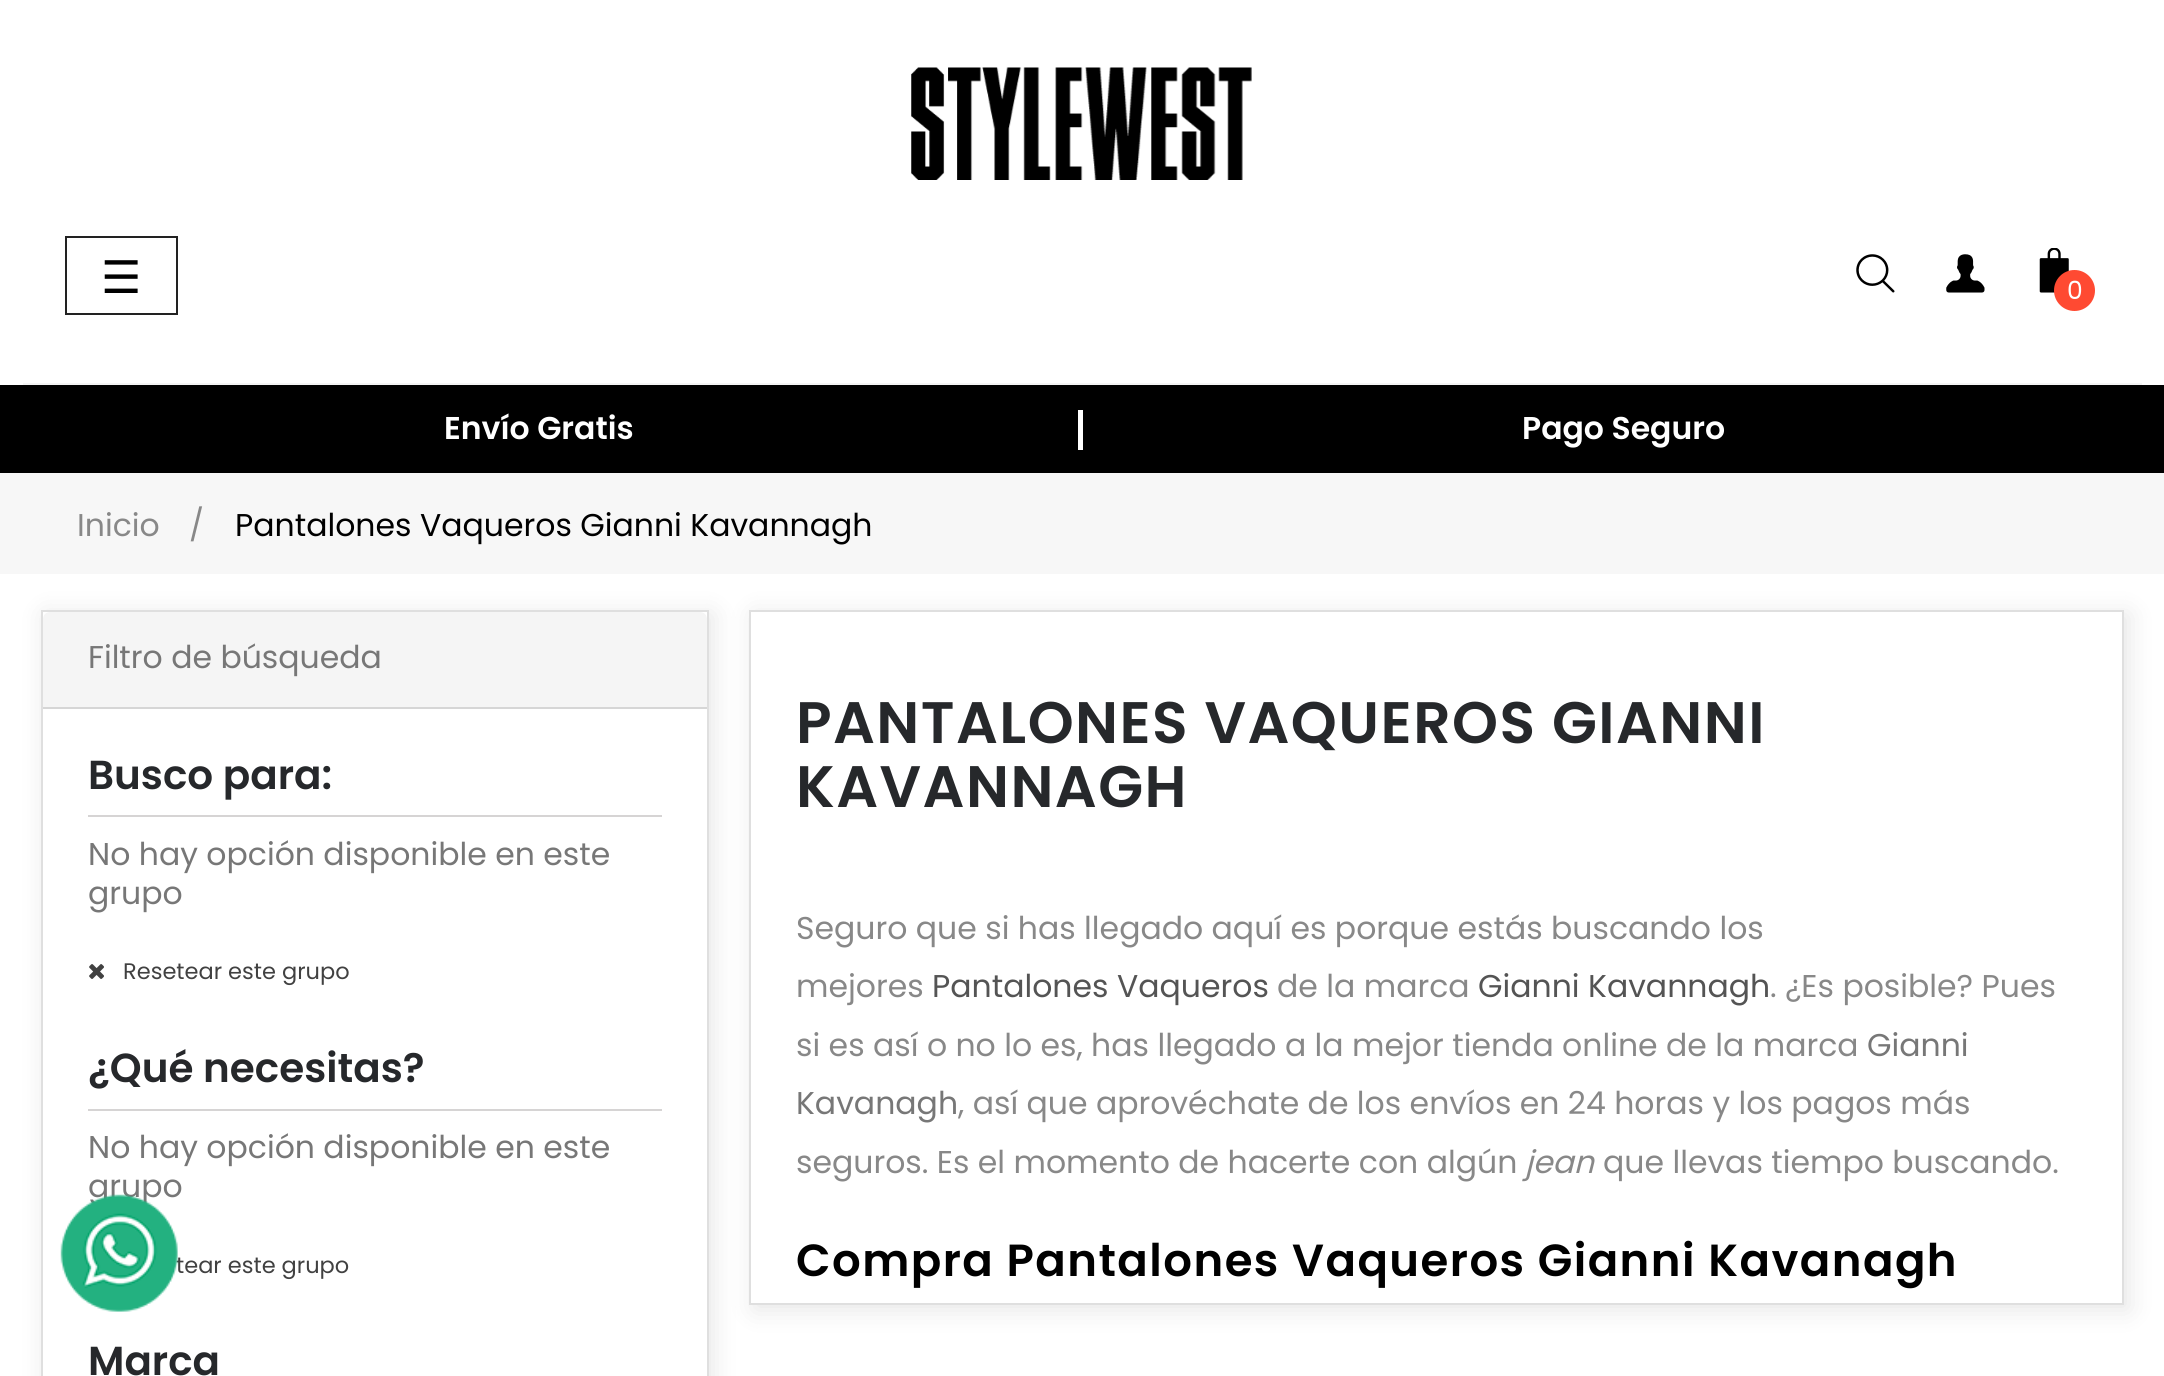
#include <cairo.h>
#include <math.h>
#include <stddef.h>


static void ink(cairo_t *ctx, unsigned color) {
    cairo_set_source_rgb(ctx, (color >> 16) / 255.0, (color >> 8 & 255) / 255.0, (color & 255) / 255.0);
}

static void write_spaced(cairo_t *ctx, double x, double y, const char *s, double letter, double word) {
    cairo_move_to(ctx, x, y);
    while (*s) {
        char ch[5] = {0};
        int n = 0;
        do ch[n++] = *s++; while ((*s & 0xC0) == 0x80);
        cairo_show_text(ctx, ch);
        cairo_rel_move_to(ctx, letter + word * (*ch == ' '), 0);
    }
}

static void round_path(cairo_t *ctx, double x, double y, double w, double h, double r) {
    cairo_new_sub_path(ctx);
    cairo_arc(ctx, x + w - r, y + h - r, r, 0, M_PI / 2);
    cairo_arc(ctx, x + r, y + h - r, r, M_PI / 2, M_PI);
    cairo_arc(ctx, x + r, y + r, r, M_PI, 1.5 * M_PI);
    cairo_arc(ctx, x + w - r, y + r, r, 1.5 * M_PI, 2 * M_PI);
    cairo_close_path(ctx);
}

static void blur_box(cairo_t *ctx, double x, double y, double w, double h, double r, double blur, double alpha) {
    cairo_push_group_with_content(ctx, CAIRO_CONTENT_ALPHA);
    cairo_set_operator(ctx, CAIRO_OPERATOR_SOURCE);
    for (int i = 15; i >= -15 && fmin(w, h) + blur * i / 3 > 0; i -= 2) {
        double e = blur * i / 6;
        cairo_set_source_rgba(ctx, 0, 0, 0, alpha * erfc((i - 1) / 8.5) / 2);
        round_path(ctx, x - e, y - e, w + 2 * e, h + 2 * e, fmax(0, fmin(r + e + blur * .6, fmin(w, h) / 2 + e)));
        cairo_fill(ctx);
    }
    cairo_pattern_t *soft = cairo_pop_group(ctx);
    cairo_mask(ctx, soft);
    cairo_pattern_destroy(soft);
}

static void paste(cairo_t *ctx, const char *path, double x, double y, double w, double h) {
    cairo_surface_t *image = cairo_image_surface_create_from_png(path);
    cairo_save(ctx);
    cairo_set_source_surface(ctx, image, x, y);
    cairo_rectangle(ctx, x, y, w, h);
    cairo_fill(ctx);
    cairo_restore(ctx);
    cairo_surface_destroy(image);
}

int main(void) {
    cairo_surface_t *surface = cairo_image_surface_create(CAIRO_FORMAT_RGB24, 2164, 1376);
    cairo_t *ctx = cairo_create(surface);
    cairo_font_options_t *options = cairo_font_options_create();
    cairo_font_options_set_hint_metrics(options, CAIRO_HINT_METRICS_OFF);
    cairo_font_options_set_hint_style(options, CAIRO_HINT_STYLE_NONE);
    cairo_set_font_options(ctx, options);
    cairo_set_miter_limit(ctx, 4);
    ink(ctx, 0xFFFFFF);
    cairo_paint(ctx);
    ink(ctx, 0xF4F4F4);
    cairo_rectangle(ctx, 23, 383, 2119, 2);
    cairo_fill(ctx);
    paste(ctx, "media/1.png", 911, 67, 341, 113);
    cairo_rectangle(ctx, 66, 237, 111, 77);
    ink(ctx, 0x222222);
    cairo_stroke(ctx);
    cairo_select_font_face(ctx, "DejaVu Sans", CAIRO_FONT_SLANT_NORMAL, CAIRO_FONT_WEIGHT_NORMAL);
    cairo_set_font_size(ctx, 45);
    ink(ctx, 0x000000);
    cairo_move_to(ctx, 101, 293);
    cairo_show_text(ctx, "☰");
    paste(ctx, "media/2.png", 1856, 254, 39, 39);
    paste(ctx, "media/3.png", 1946, 254, 39, 39);
    paste(ctx, "media/4.png", 2039, 248, 30, 45);
    ink(ctx, 0xFF4A32);
    cairo_arc(ctx, 2074.5, 290.5, 20.5, 0, 2 * M_PI);
    cairo_fill(ctx);
    cairo_select_font_face(ctx, "Poppins", CAIRO_FONT_SLANT_NORMAL, CAIRO_FONT_WEIGHT_NORMAL);
    cairo_set_font_size(ctx, 25);
    ink(ctx, 0xFFFFFF);
    cairo_move_to(ctx, 2067, 299);
    cairo_show_text(ctx, "0");
    ink(ctx, 0x000000);
    cairo_rectangle(ctx, 0, 385, 2164, 88);
    cairo_fill(ctx);
    ink(ctx, 0xFFFFFF);
    cairo_rectangle(ctx, 1078, 410, 5, 40);
    cairo_fill(ctx);
    cairo_select_font_face(ctx, "Poppins SemiBold", CAIRO_FONT_SLANT_NORMAL, CAIRO_FONT_WEIGHT_NORMAL);
    cairo_set_font_size(ctx, 31.5);
    cairo_move_to(ctx, 444, 439);
    cairo_show_text(ctx, "Envío Gratis");
    cairo_move_to(ctx, 1522, 439);
    cairo_show_text(ctx, "Pago Seguro");
    ink(ctx, 0xF7F7F7);
    cairo_rectangle(ctx, 0, 473, 2164, 101);
    cairo_fill(ctx);
    cairo_select_font_face(ctx, "Poppins", CAIRO_FONT_SLANT_NORMAL, CAIRO_FONT_WEIGHT_NORMAL);
    ink(ctx, 0x888888);
    cairo_move_to(ctx, 77, 536);
    cairo_show_text(ctx, "Inicio");
    cairo_move_to(ctx, 189, 536);
    cairo_show_text(ctx, "/");
    ink(ctx, 0x000000);
    cairo_move_to(ctx, 235, 536);
    cairo_show_text(ctx, "Pantalones Vaqueros Gianni Kavannagh");
    ink(ctx, 0x000000);
    blur_box(ctx, 45, 614, 668, 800, 0, 12.5, 0.1);
    ink(ctx, 0xFFFFFF);
    cairo_rectangle(ctx, 42, 611, 666, 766);
    cairo_fill_preserve(ctx);
    ink(ctx, 0xDFDFDF);
    cairo_stroke(ctx);
    ink(ctx, 0xF5F5F5);
    cairo_new_path(ctx);
    cairo_move_to(ctx, 50, 612);
    cairo_line_to(ctx, 700, 612);
    cairo_curve_to(ctx, 704, 612, 707, 615, 707, 619);
    cairo_line_to(ctx, 707, 709);
    cairo_line_to(ctx, 43, 709);
    cairo_line_to(ctx, 43, 619);
    cairo_curve_to(ctx, 43, 615, 46, 612, 50, 612);
    cairo_close_path(ctx);
    cairo_fill(ctx);
    ink(ctx, 0xD6D6D6);
    cairo_rectangle(ctx, 43, 707, 664, 2);
    cairo_fill(ctx);
    ink(ctx, 0x777777);
    cairo_move_to(ctx, 88, 668);
    cairo_show_text(ctx, "Filtro de búsqueda");
    ink(ctx, 0xD6D4D4);
    cairo_rectangle(ctx, 88, 815, 574, 2);
    cairo_fill(ctx);
    cairo_select_font_face(ctx, "Poppins SemiBold", CAIRO_FONT_SLANT_NORMAL, CAIRO_FONT_WEIGHT_NORMAL);
    cairo_set_font_size(ctx, 40.5);
    ink(ctx, 0x26282B);
    cairo_move_to(ctx, 88, 789);
    cairo_show_text(ctx, "Busco para:");
    cairo_select_font_face(ctx, "Poppins", CAIRO_FONT_SLANT_NORMAL, CAIRO_FONT_WEIGHT_NORMAL);
    cairo_set_font_size(ctx, 31.5);
    ink(ctx, 0x777777);
    cairo_move_to(ctx, 88, 865);
    cairo_show_text(ctx, "No hay opción disponible en este");
    cairo_move_to(ctx, 88, 904);
    cairo_show_text(ctx, "grupo");
    paste(ctx, "media/5.png", 89, 964, 15, 15);
    cairo_set_font_size(ctx, 22.5);
    ink(ctx, 0x414141);
    cairo_move_to(ctx, 123, 979);
    cairo_show_text(ctx, "Resetear este grupo");
    ink(ctx, 0xD6D4D4);
    cairo_rectangle(ctx, 88, 1109, 574, 2);
    cairo_fill(ctx);
    cairo_select_font_face(ctx, "Poppins SemiBold", CAIRO_FONT_SLANT_NORMAL, CAIRO_FONT_WEIGHT_NORMAL);
    cairo_set_font_size(ctx, 40.5);
    ink(ctx, 0x26282B);
    cairo_move_to(ctx, 88, 1082);
    cairo_show_text(ctx, "¿Qué necesitas?");
    cairo_select_font_face(ctx, "Poppins", CAIRO_FONT_SLANT_NORMAL, CAIRO_FONT_WEIGHT_NORMAL);
    cairo_set_font_size(ctx, 31.5);
    ink(ctx, 0x777777);
    cairo_move_to(ctx, 88, 1158);
    cairo_show_text(ctx, "No hay opción disponible en este");
    cairo_move_to(ctx, 88, 1197);
    cairo_show_text(ctx, "grupo");
    cairo_set_font_size(ctx, 22.5);
    ink(ctx, 0x414141);
    cairo_move_to(ctx, 176, 1273);
    cairo_show_text(ctx, "tear este grupo");
    cairo_select_font_face(ctx, "Poppins SemiBold", CAIRO_FONT_SLANT_NORMAL, CAIRO_FONT_WEIGHT_NORMAL);
    cairo_set_font_size(ctx, 40.5);
    ink(ctx, 0x26282B);
    cairo_move_to(ctx, 88, 1375);
    cairo_show_text(ctx, "Marca");
    ink(ctx, 0x000000);
    blur_box(ctx, 754, 614, 1375, 696, 0, 12.5, 0.1);
    ink(ctx, 0xFFFFFF);
    cairo_rectangle(ctx, 750, 611, 1373, 693);
    cairo_fill_preserve(ctx);
    ink(ctx, 0xDFDFDF);
    cairo_stroke(ctx);
    cairo_set_font_size(ctx, 58.5);
    ink(ctx, 0x26282B);
    write_spaced(ctx, 796, 743, "PANTALONES VAQUEROS GIANNI", 1.45, 0);
    write_spaced(ctx, 796, 807, "KAVANNAGH", 1.45, 0);
    cairo_select_font_face(ctx, "Poppins", CAIRO_FONT_SLANT_NORMAL, CAIRO_FONT_WEIGHT_NORMAL);
    cairo_set_font_size(ctx, 31.5);
    ink(ctx, 0x888888);
    cairo_move_to(ctx, 796, 939);
    cairo_show_text(ctx, "Seguro que si has llegado aquí es porque estás buscando los");
    cairo_move_to(ctx, 796, 997);
    cairo_show_text(ctx, "mejores");
    ink(ctx, 0x545454);
    cairo_move_to(ctx, 932, 997);
    cairo_show_text(ctx, "Pantalones Vaqueros");
    ink(ctx, 0x888888);
    cairo_move_to(ctx, 1277, 997);
    cairo_show_text(ctx, "de la marca");
    ink(ctx, 0x545454);
    cairo_move_to(ctx, 1478, 997);
    cairo_show_text(ctx, "Gianni Kavannagh");
    ink(ctx, 0x888888);
    cairo_move_to(ctx, 1770, 997);
    cairo_show_text(ctx, ". ¿Es posible? Pues");
    cairo_move_to(ctx, 796, 1056);
    cairo_show_text(ctx, "si es así o no lo es, has llegado a la mejor tienda online de la marca");
    ink(ctx, 0x777777);
    cairo_move_to(ctx, 1867, 1056);
    cairo_show_text(ctx, "Gianni");
    cairo_move_to(ctx, 796, 1114);
    cairo_show_text(ctx, "Kavanagh");
    ink(ctx, 0x888888);
    cairo_move_to(ctx, 958, 1114);
    cairo_show_text(ctx, ", así que aprovéchate de los envíos en 24 horas y los pagos más");
    cairo_move_to(ctx, 796, 1173);
    cairo_show_text(ctx, "seguros. Es el momento de hacerte con algún");
    cairo_select_font_face(ctx, "Poppins", CAIRO_FONT_SLANT_ITALIC, CAIRO_FONT_WEIGHT_NORMAL);
    cairo_move_to(ctx, 1525, 1173);
    cairo_show_text(ctx, "jean");
    cairo_select_font_face(ctx, "Poppins", CAIRO_FONT_SLANT_NORMAL, CAIRO_FONT_WEIGHT_NORMAL);
    cairo_move_to(ctx, 1603, 1173);
    cairo_show_text(ctx, "que llevas tiempo buscando.");
    cairo_select_font_face(ctx, "Poppins SemiBold", CAIRO_FONT_SLANT_NORMAL, CAIRO_FONT_WEIGHT_NORMAL);
    cairo_set_font_size(ctx, 45);
    ink(ctx, 0x000000);
    write_spaced(ctx, 796, 1276, "Compra Pantalones Vaqueros Gianni Kavanagh", 1.45, 0);
    paste(ctx, "media/6.png", 60, 1194, 118, 118);
    cairo_surface_write_to_png(surface, "image.png");
    cairo_font_options_destroy(options);
    cairo_destroy(ctx);
    cairo_surface_destroy(surface);
    return 0;
}
